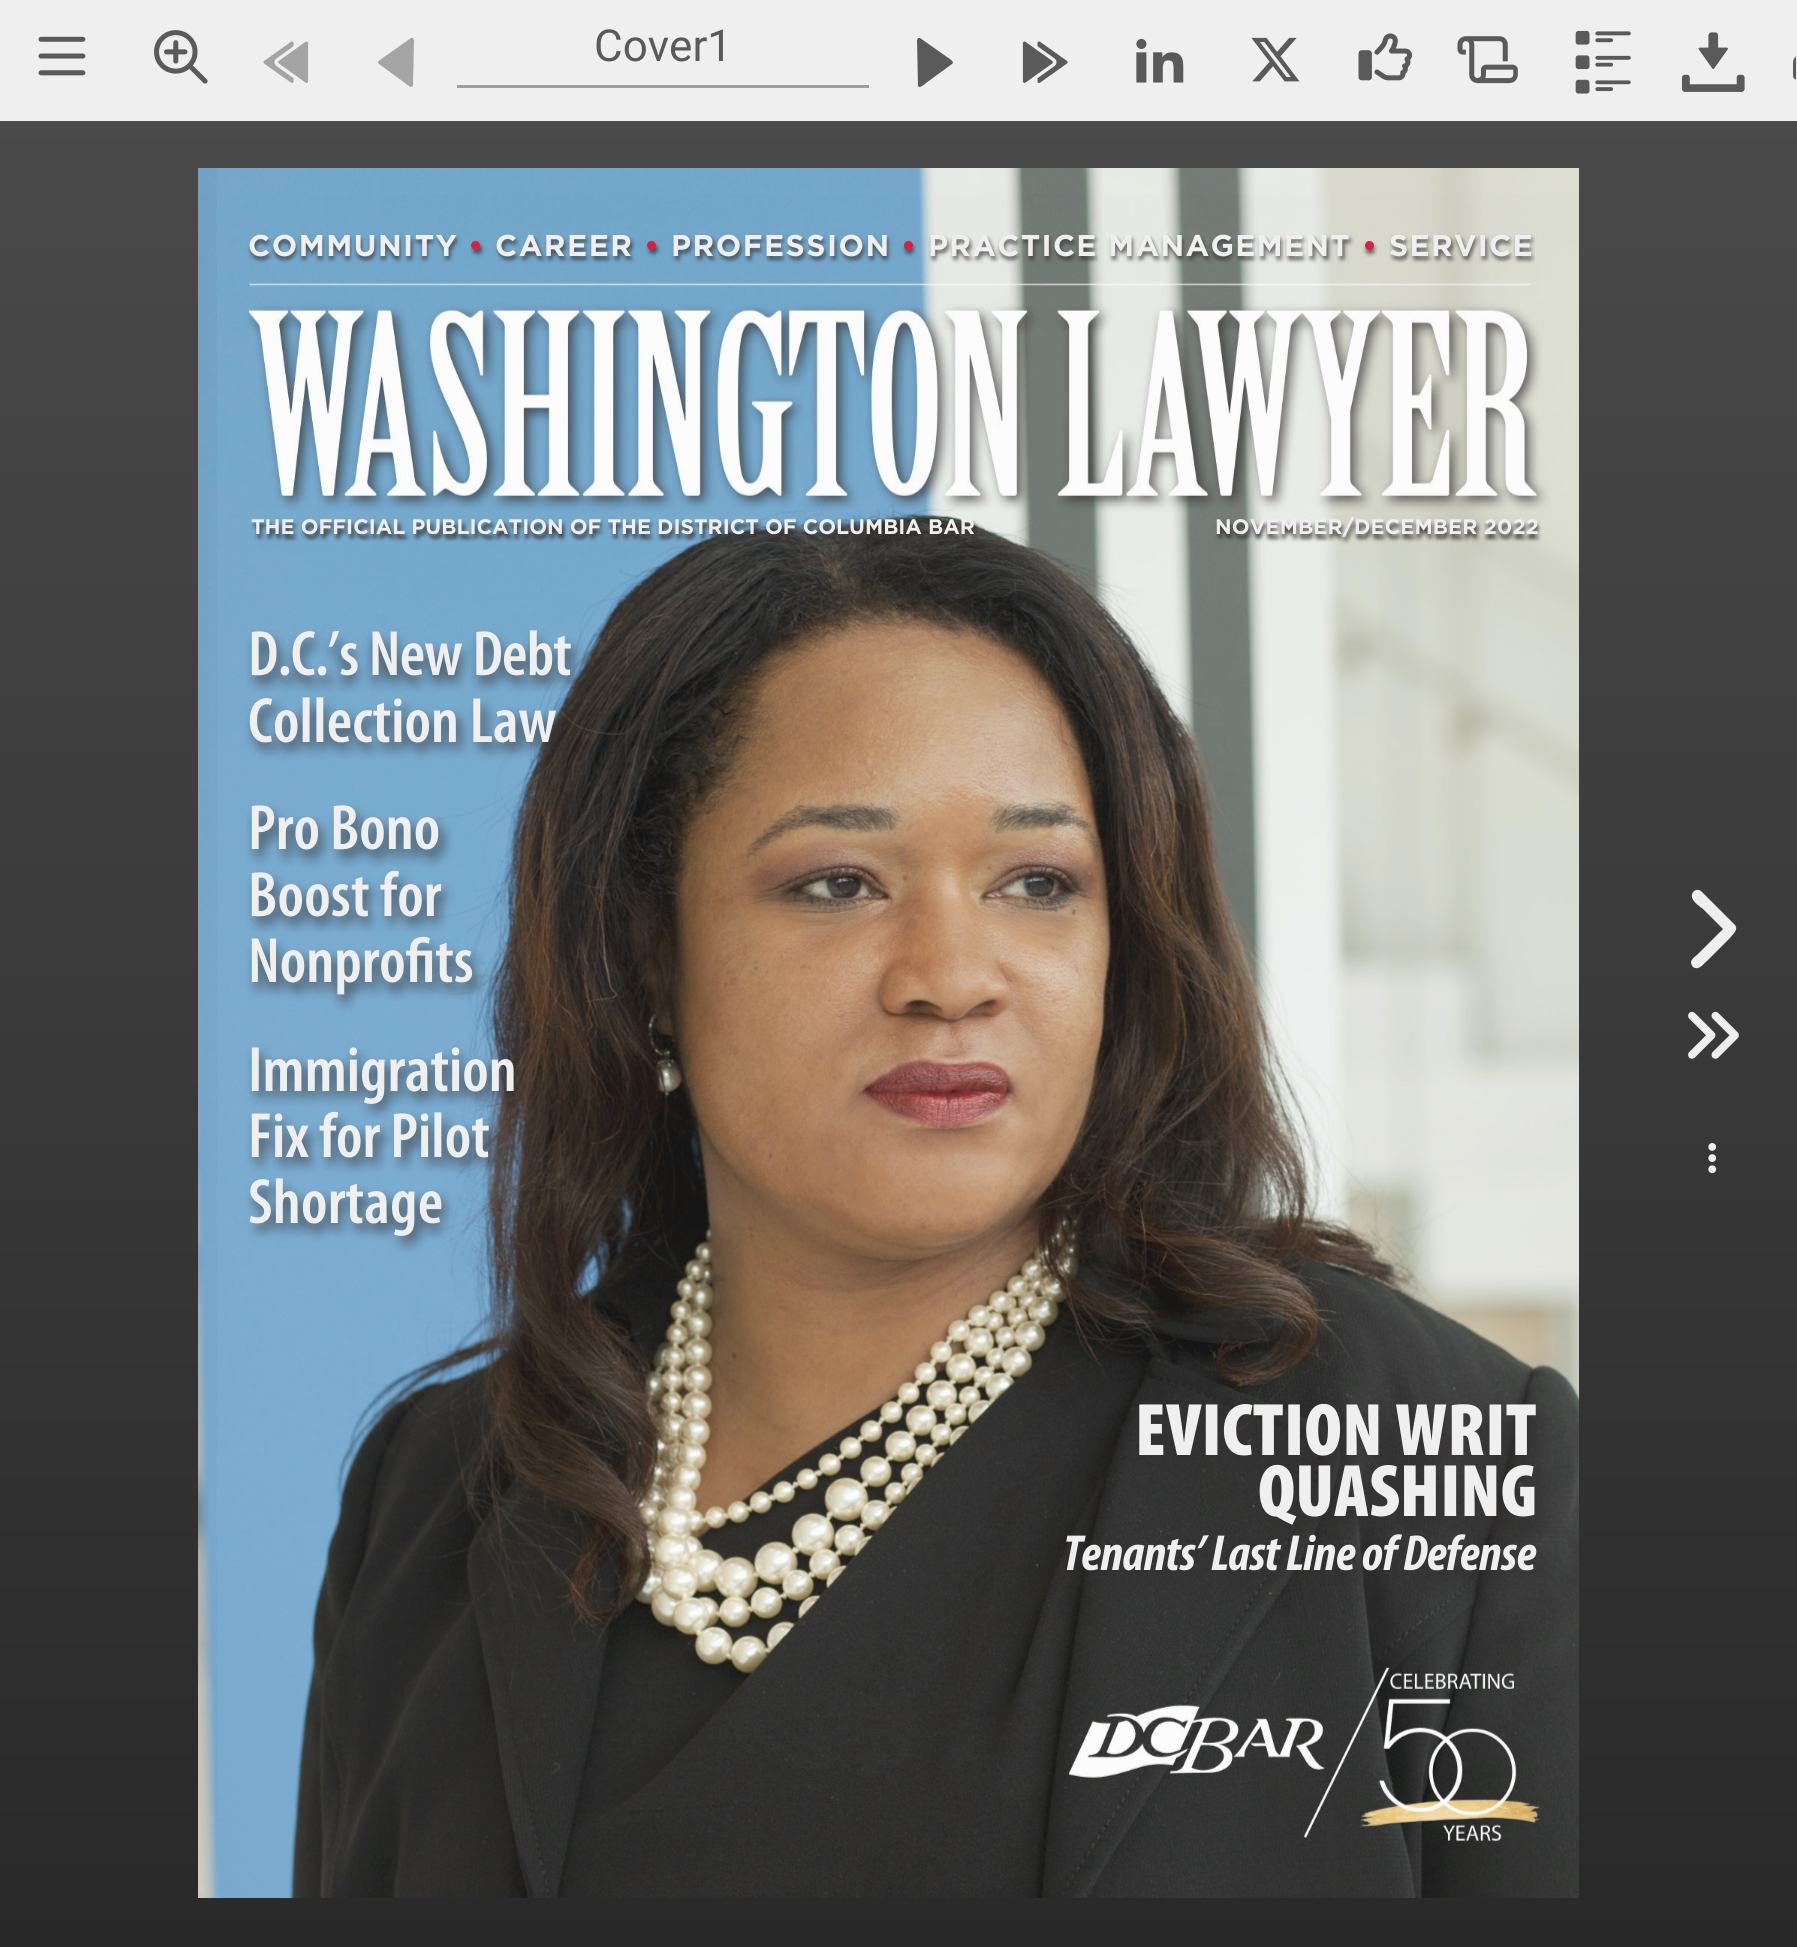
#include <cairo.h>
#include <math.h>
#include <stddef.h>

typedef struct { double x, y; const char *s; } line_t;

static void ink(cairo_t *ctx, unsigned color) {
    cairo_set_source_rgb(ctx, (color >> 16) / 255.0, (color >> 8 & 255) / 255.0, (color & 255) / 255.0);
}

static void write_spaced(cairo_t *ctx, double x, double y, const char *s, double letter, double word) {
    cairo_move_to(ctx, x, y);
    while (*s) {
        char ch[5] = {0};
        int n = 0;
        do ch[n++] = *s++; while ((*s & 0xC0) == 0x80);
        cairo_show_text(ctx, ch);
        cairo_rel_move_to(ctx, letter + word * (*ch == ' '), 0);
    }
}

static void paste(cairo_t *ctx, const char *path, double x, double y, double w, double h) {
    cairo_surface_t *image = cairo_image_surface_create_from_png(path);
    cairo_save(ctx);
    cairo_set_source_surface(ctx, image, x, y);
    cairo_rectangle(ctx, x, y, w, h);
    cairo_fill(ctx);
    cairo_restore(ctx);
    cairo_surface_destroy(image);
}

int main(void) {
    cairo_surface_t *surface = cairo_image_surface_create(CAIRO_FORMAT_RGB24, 1797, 1947);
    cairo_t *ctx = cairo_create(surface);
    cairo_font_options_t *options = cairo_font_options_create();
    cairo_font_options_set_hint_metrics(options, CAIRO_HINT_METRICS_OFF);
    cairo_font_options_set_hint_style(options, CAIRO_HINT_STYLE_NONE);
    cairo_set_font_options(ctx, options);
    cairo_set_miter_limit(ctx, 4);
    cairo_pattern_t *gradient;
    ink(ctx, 0xFFFFFF);
    cairo_paint(ctx);
    gradient = cairo_pattern_create_linear(899, 0, 899, 1947);
    cairo_pattern_add_color_stop_rgba(gradient, 0, 0.298, 0.298, 0.298, 1);
    cairo_pattern_add_color_stop_rgba(gradient, 1, 0.161, 0.161, 0.161, 1);
    cairo_set_source(ctx, gradient);
    cairo_pattern_destroy(gradient);
    cairo_rectangle(ctx, 0, 121, 1797, 1826);
    cairo_fill(ctx);
    ink(ctx, 0xEFEFEF);
    cairo_rectangle(ctx, 0, 0, 1797, 121);
    cairo_fill(ctx);
    paste(ctx, "media/1.png", 38, 36, 48, 40);
    paste(ctx, "media/2.png", 154, 30, 54, 54);
    paste(ctx, "media/3.png", 263, 41, 46, 42);
    ink(ctx, 0xA5A5A5);
    cairo_new_path(ctx);
    cairo_move_to(ctx, 379, 64);
    cairo_line_to(ctx, 405, 83);
    cairo_curve_to(ctx, 405, 83, 411, 89, 413, 86);
    cairo_line_to(ctx, 414, 40);
    cairo_line_to(ctx, 413, 38);
    cairo_curve_to(ctx, 412, 38, 411, 38, 411, 38);
    cairo_line_to(ctx, 384, 57);
    cairo_curve_to(ctx, 381, 59, 376, 62, 379, 64);
    cairo_close_path(ctx);
    cairo_fill(ctx);
    ink(ctx, 0x9E9E9E);
    cairo_rectangle(ctx, 457, 85, 412, 3);
    cairo_fill(ctx);
    cairo_select_font_face(ctx, "Roboto", CAIRO_FONT_SLANT_NORMAL, CAIRO_FONT_WEIGHT_NORMAL);
    cairo_set_font_size(ctx, 44);
    ink(ctx, 0x5A5A5A);
    cairo_move_to(ctx, 594, 61);
    cairo_show_text(ctx, "Cover1");
    cairo_new_path(ctx);
    cairo_move_to(ctx, 952, 64);
    cairo_line_to(ctx, 926, 83);
    cairo_curve_to(ctx, 926, 83, 920, 89, 918, 86);
    cairo_line_to(ctx, 917, 40);
    cairo_line_to(ctx, 918, 38);
    cairo_curve_to(ctx, 919, 38, 920, 38, 920, 38);
    cairo_line_to(ctx, 947, 57);
    cairo_curve_to(ctx, 950, 59, 955, 62, 952, 64);
    cairo_close_path(ctx);
    cairo_fill(ctx);
    paste(ctx, "media/4.png", 1022, 41, 46, 42);
    paste(ctx, "media/5.png", 1136, 38, 48, 45);
    paste(ctx, "media/6.png", 1251, 37, 49, 45);
    paste(ctx, "media/7.png", 1358, 33, 55, 48);
    paste(ctx, "media/8.png", 1457, 36, 61, 48);
    paste(ctx, "media/9.png", 1575, 30, 56, 64);
    paste(ctx, "media/10.png", 1681, 32, 64, 60);
    paste(ctx, "media/11.png", 1793, 56, 3, 24);
    paste(ctx, "media/12.png", 198, 168, 1381, 1730);
    paste(ctx, "media/13.png", 198, 168, 1381, 1730);
    gradient = cairo_pattern_create_linear(1579, 1035, 198, 1035);
    cairo_pattern_add_color_stop_rgba(gradient, 0.95, 0, 0, 0, 0);
    cairo_pattern_add_color_stop_rgba(gradient, 1, 0, 0, 0, 0.03);
    cairo_set_source(ctx, gradient);
    cairo_pattern_destroy(gradient);
    cairo_rectangle(ctx, 198, 168, 19, 1730);
    cairo_fill(ctx);
    cairo_select_font_face(ctx, "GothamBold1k", CAIRO_FONT_SLANT_NORMAL, CAIRO_FONT_WEIGHT_BOLD);
    cairo_set_font_size(ctx, 30);
    ink(ctx, 0xEFEFEF);
    write_spaced(ctx, 248, 256, "COMMUNITY", 1.5, 0);
    ink(ctx, 0xDE1E41);
    cairo_move_to(ctx, 468, 256);
    cairo_show_text(ctx, "•");
    ink(ctx, 0xEFEFEF);
    write_spaced(ctx, 495, 256, "CAREER", 1.5, 0);
    ink(ctx, 0xDE1E41);
    cairo_move_to(ctx, 644, 256);
    cairo_show_text(ctx, "•");
    ink(ctx, 0xEFEFEF);
    write_spaced(ctx, 671, 256, "PROFESSION", 1.5, 0);
    ink(ctx, 0xDE1E41);
    cairo_move_to(ctx, 901, 256);
    cairo_show_text(ctx, "•");
    ink(ctx, 0xEFEFEF);
    write_spaced(ctx, 928, 256, "PRACTICE MANAGEMENT", 1.3, 0);
    ink(ctx, 0xDE1E41);
    cairo_move_to(ctx, 1362, 256);
    cairo_show_text(ctx, "•");
    ink(ctx, 0xEFEFEF);
    write_spaced(ctx, 1389, 256, "SERVICE", 1.3, 0);
    cairo_set_font_size(ctx, 21);
    write_spaced(ctx, 251, 534, "THE OFFICIAL PUBLICATION OF THE DISTRICT OF COLUMBIA BAR", 0, -0.25);
    write_spaced(ctx, 1215, 534, "NOVEMBER/DECEMBER 2022", 0.1, 0);
    cairo_select_font_face(ctx, "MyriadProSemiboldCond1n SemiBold", CAIRO_FONT_SLANT_NORMAL, CAIRO_FONT_WEIGHT_NORMAL);
    cairo_set_font_size(ctx, 64.5);
    write_spaced(ctx, 248, 675, "D.C.’s New Debt", -0.75, 1);
    write_spaced(ctx, 248, 742, "Collection Law", 0.1, 0);
    cairo_move_to(ctx, 248, 849);
    cairo_show_text(ctx, "Pro Bono");
    write_spaced(ctx, 248, 916, "Boost for", 0.25, 0);
    {
        static const line_t items[] = {
            {248, 982, "Nonproﬁts"},
            {248, 1091, "Immigration"},
            {248, 1157, "Fix for Pilot"},
        };
        for (size_t i = 0; i < sizeof items / sizeof *items; i++) {
            cairo_move_to(ctx, items[i].x, items[i].y);
            cairo_show_text(ctx, items[i].s);
        }
    }
    write_spaced(ctx, 248, 1223, "Shortage", 0.25, 0);
    cairo_select_font_face(ctx, "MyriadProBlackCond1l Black", CAIRO_FONT_SLANT_NORMAL, CAIRO_FONT_WEIGHT_NORMAL);
    cairo_set_font_size(ctx, 75);
    write_spaced(ctx, 1135, 1455, "EVICTION WRIT", 0.4, 0);
    cairo_move_to(ctx, 1258, 1516);
    cairo_show_text(ctx, "QUASHING");
    cairo_select_font_face(ctx, "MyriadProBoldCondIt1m", CAIRO_FONT_SLANT_NORMAL, CAIRO_FONT_WEIGHT_BOLD);
    cairo_set_font_size(ctx, 51);
    write_spaced(ctx, 1063, 1570, "Tenants’ Last Line of Defense", -0.5, 0);
    ink(ctx, 0xEEEEEE);
    cairo_new_path(ctx);
    cairo_move_to(ctx, 1735, 925);
    cairo_curve_to(ctx, 1739, 930, 1732, 935, 1729, 939);
    cairo_line_to(ctx, 1707, 961);
    cairo_curve_to(ctx, 1703, 964, 1699, 971, 1693, 967);
    cairo_curve_to(ctx, 1692, 966, 1691, 964, 1691, 962);
    cairo_curve_to(ctx, 1692, 958, 1696, 956, 1698, 954);
    cairo_line_to(ctx, 1723, 929);
    cairo_line_to(ctx, 1703, 909);
    cairo_curve_to(ctx, 1700, 907, 1692, 901, 1692, 897);
    cairo_curve_to(ctx, 1691, 891, 1697, 888, 1701, 891);
    cairo_close_path(ctx);
    cairo_fill(ctx);
    paste(ctx, "media/14.png", 1688, 1011, 51, 48);
    paste(ctx, "media/15.png", 1708, 1143, 9, 31);
    cairo_surface_write_to_png(surface, "image.png");
    cairo_font_options_destroy(options);
    cairo_destroy(ctx);
    cairo_surface_destroy(surface);
    return 0;
}
